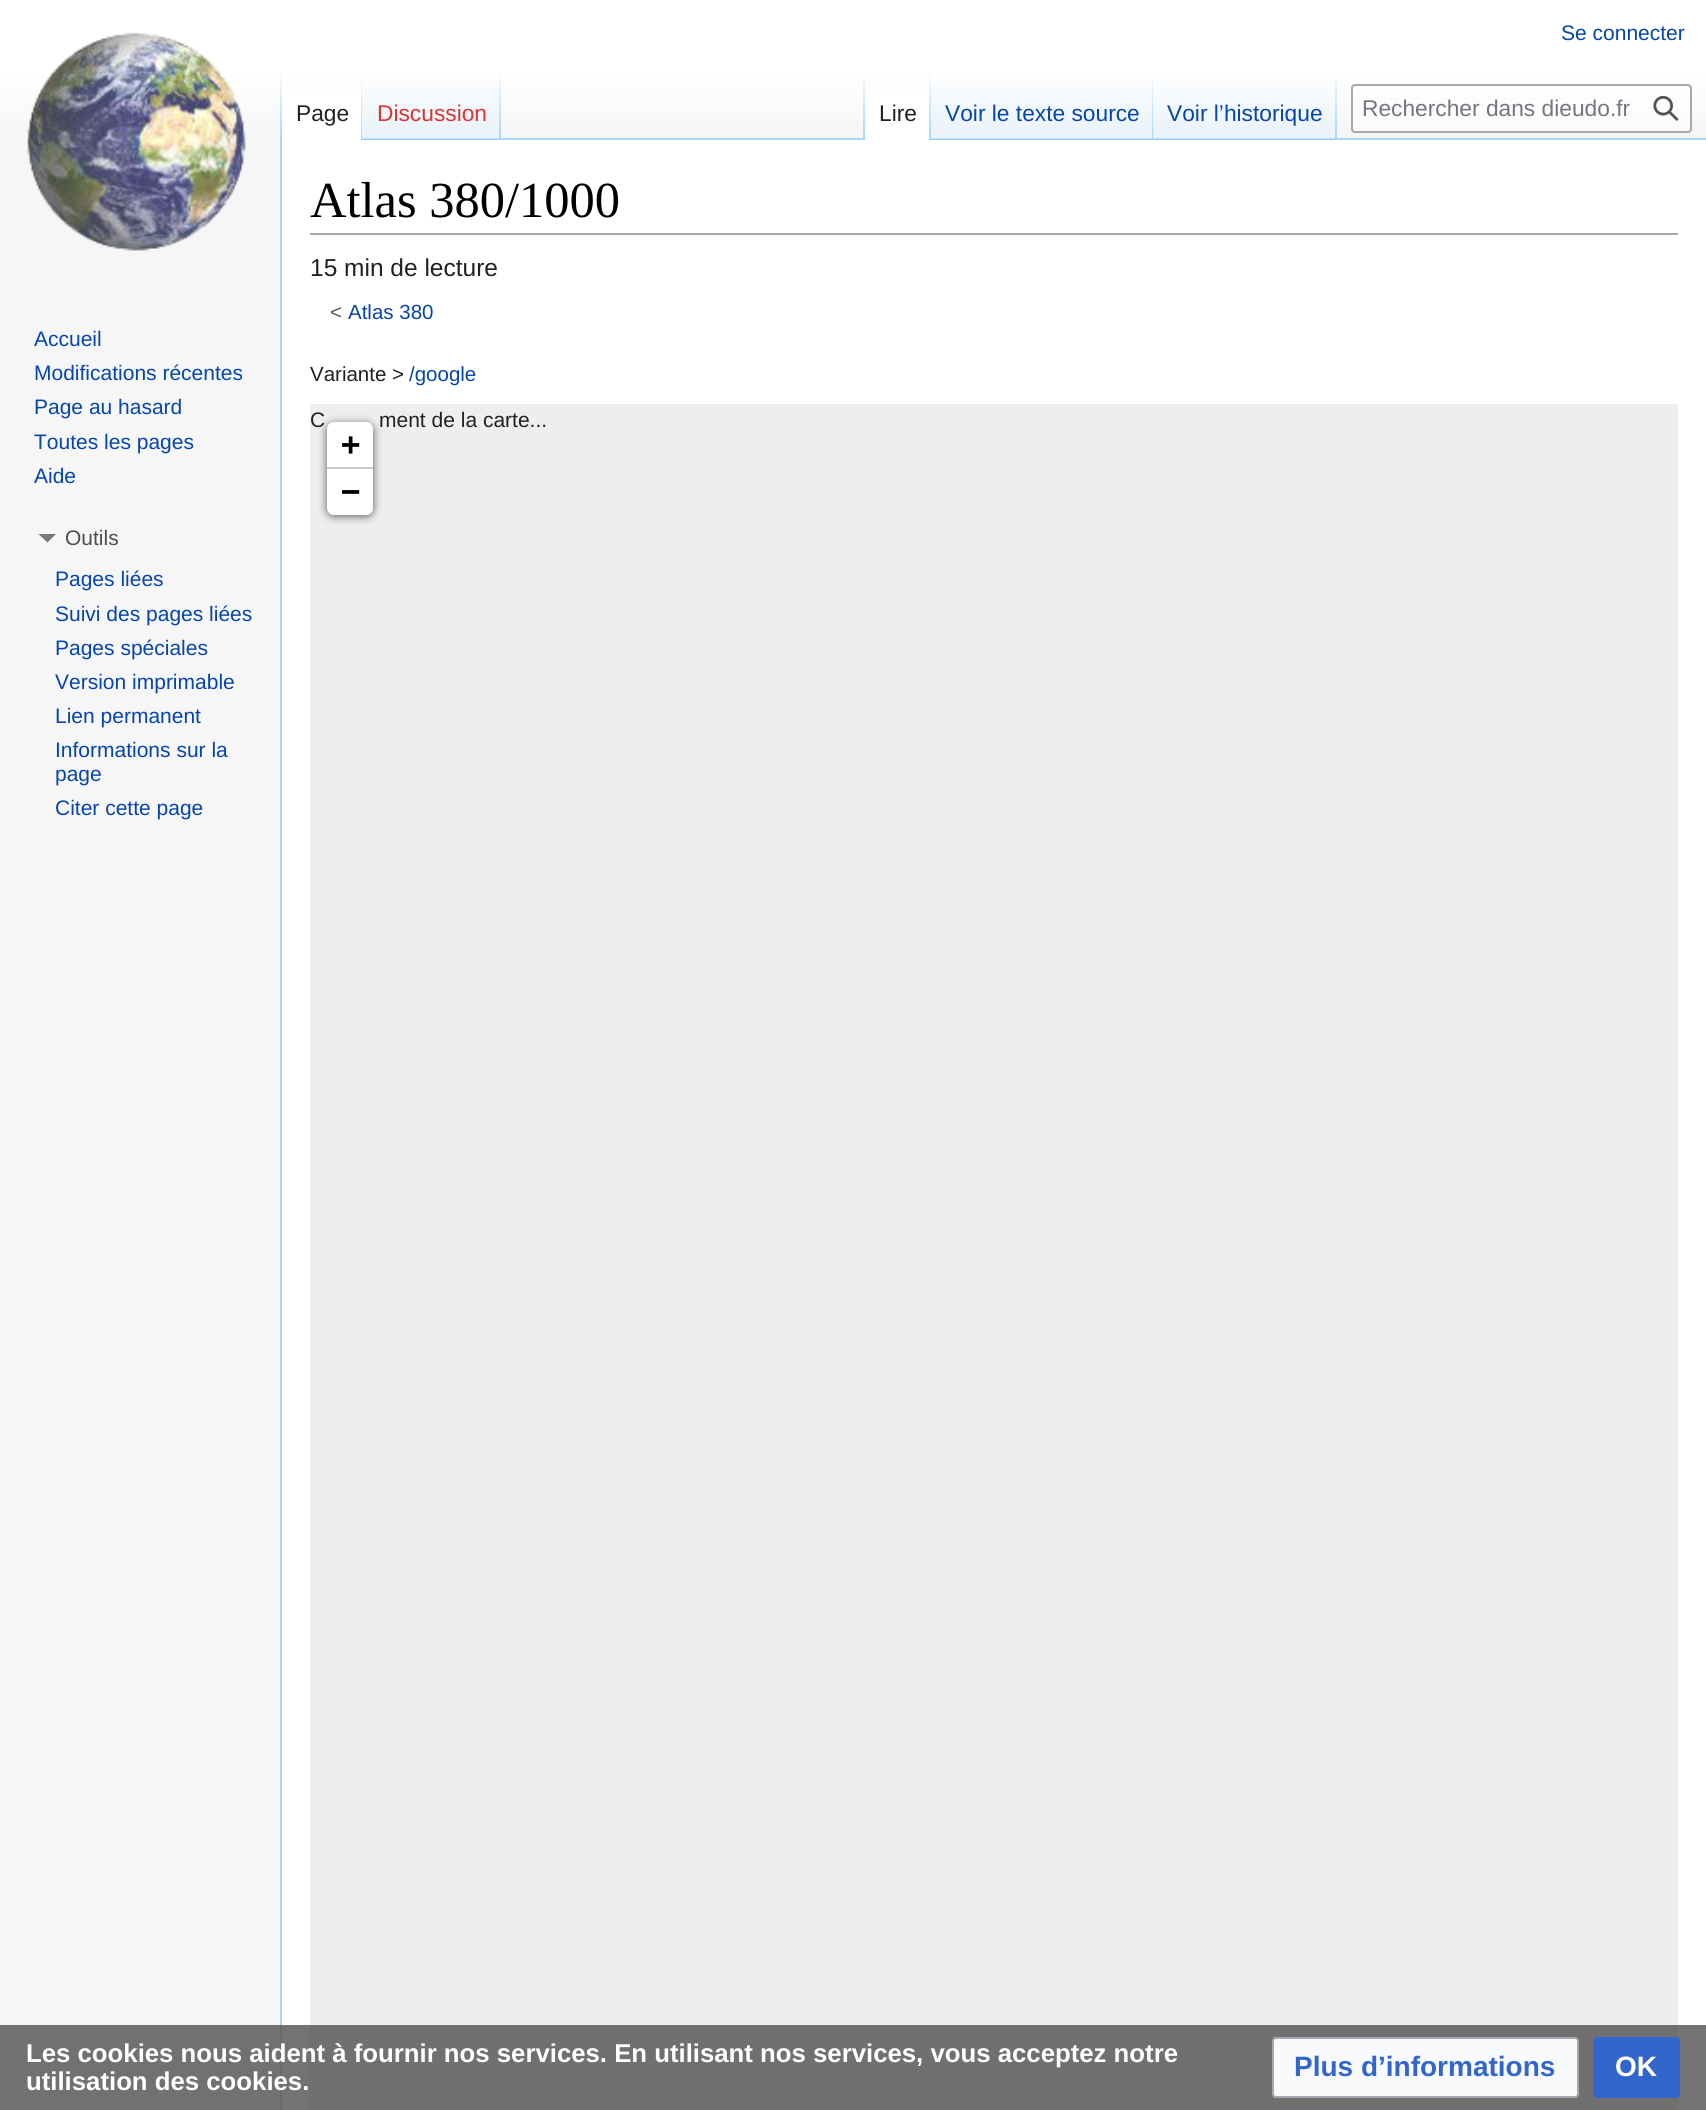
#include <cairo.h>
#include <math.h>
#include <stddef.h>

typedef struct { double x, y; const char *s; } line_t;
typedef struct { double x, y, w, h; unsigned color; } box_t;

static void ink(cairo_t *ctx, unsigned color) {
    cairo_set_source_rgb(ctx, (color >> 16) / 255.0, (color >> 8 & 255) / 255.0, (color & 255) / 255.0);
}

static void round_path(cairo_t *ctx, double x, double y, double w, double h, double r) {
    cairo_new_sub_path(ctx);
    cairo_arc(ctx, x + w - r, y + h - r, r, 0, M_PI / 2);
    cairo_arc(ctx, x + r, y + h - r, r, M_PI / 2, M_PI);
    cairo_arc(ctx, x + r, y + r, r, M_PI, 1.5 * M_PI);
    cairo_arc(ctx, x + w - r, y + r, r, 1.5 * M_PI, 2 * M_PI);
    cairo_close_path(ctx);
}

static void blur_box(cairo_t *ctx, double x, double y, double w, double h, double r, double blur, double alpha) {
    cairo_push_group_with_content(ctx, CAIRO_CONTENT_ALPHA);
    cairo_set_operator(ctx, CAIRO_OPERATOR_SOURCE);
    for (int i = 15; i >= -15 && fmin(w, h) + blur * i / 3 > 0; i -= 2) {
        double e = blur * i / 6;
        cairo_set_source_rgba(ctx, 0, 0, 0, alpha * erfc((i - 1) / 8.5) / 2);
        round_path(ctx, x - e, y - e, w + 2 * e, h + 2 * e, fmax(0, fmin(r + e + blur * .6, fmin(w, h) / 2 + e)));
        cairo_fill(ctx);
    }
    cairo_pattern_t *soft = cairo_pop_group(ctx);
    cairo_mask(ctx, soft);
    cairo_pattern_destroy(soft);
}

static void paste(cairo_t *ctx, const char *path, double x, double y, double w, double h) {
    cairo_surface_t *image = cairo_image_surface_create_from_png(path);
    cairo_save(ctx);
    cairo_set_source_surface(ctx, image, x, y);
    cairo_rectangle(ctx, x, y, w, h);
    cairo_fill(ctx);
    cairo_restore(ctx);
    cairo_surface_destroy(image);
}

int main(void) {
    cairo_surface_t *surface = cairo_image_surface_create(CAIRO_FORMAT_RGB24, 1706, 2110);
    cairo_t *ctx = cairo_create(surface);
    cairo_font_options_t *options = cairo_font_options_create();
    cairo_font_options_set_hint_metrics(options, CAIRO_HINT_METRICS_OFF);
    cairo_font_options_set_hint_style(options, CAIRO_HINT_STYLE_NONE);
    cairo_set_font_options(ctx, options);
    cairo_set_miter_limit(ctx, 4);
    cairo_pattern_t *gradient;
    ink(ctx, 0xF6F6F6);
    cairo_paint(ctx);
    ink(ctx, 0x717171);
    cairo_rectangle(ctx, 0, 2025, 280, 85);
    cairo_fill(ctx);
    gradient = cairo_pattern_create_linear(853, 0, 853, 140);
    cairo_pattern_add_color_stop_rgba(gradient, 0.5, 1, 1, 1, 1);
    cairo_pattern_add_color_stop_rgba(gradient, 1, 0.965, 0.965, 0.965, 1);
    cairo_set_source(ctx, gradient);
    cairo_pattern_destroy(gradient);
    cairo_rectangle(ctx, 0, 0, 1706, 121);
    cairo_fill(ctx);
    cairo_select_font_face(ctx, "Liberation Sans", CAIRO_FONT_SLANT_NORMAL, CAIRO_FONT_WEIGHT_NORMAL);
    cairo_set_font_size(ctx, 21);
    ink(ctx, 0x0645AD);
    cairo_move_to(ctx, 1561, 40);
    cairo_show_text(ctx, "Se connecter");
    ink(ctx, 0xA7D7F9);
    cairo_rectangle(ctx, 280, 138, 2, 1887);
    cairo_fill(ctx);
    gradient = cairo_pattern_create_linear(281, 70, 281, 140);
    cairo_pattern_add_color_stop_rgba(gradient, 0, 0.655, 0.843, 0.976, 0);
    cairo_pattern_add_color_stop_rgba(gradient, 1, 0.655, 0.843, 0.976, 1);
    cairo_set_source(ctx, gradient);
    cairo_pattern_destroy(gradient);
    cairo_rectangle(ctx, 280, 70, 2, 70);
    cairo_fill(ctx);
    ink(ctx, 0xFFFFFF);
    cairo_rectangle(ctx, 282, 89, 79, 51);
    cairo_fill(ctx);
    gradient = cairo_pattern_create_linear(361, 70, 361, 140);
    cairo_pattern_add_color_stop_rgba(gradient, 0, 1, 1, 1, 1);
    cairo_pattern_add_color_stop_rgba(gradient, 1, 0.655, 0.843, 0.976, 1);
    cairo_set_source(ctx, gradient);
    cairo_pattern_destroy(gradient);
    cairo_rectangle(ctx, 361, 70, 1, 70);
    cairo_fill(ctx);
    cairo_set_font_size(ctx, 22.75);
    ink(ctx, 0x202122);
    cairo_move_to(ctx, 296, 121);
    cairo_show_text(ctx, "Page");
    gradient = cairo_pattern_create_linear(431, 140, 431, 70);
    cairo_pattern_add_color_stop_rgba(gradient, 0, 0.467, 0.757, 0.965, 1);
    cairo_pattern_add_color_stop_rgba(gradient, 0.03, 0.91, 0.949, 0.973, 1);
    cairo_pattern_add_color_stop_rgba(gradient, 1, 1, 1, 1, 1);
    cairo_set_source(ctx, gradient);
    cairo_pattern_destroy(gradient);
    cairo_rectangle(ctx, 362, 80, 139, 60);
    cairo_fill(ctx);
    gradient = cairo_pattern_create_linear(500, 70, 500, 140);
    cairo_pattern_add_color_stop_rgba(gradient, 0, 0.655, 0.843, 0.976, 0);
    cairo_pattern_add_color_stop_rgba(gradient, 1, 0.655, 0.843, 0.976, 1);
    cairo_set_source(ctx, gradient);
    cairo_pattern_destroy(gradient);
    cairo_rectangle(ctx, 499, 70, 2, 70);
    cairo_fill(ctx);
    ink(ctx, 0xDD3333);
    cairo_move_to(ctx, 377, 121);
    cairo_show_text(ctx, "Discussion");
    ink(ctx, 0xA7D7F9);
    cairo_rectangle(ctx, 501, 138, 1205, 2);
    cairo_fill(ctx);
    gradient = cairo_pattern_create_linear(864, 70, 864, 140);
    cairo_pattern_add_color_stop_rgba(gradient, 0, 0.655, 0.843, 0.976, 0);
    cairo_pattern_add_color_stop_rgba(gradient, 1, 0.655, 0.843, 0.976, 1);
    cairo_set_source(ctx, gradient);
    cairo_pattern_destroy(gradient);
    cairo_rectangle(ctx, 863, 70, 2, 70);
    cairo_fill(ctx);
    ink(ctx, 0xFFFFFF);
    cairo_rectangle(ctx, 865, 89, 64, 51);
    cairo_fill(ctx);
    gradient = cairo_pattern_create_linear(930, 70, 930, 140);
    cairo_pattern_add_color_stop_rgba(gradient, 0, 1, 1, 1, 1);
    cairo_pattern_add_color_stop_rgba(gradient, 1, 0.655, 0.843, 0.976, 1);
    cairo_set_source(ctx, gradient);
    cairo_pattern_destroy(gradient);
    cairo_rectangle(ctx, 929, 70, 2, 70);
    cairo_fill(ctx);
    ink(ctx, 0x202122);
    cairo_move_to(ctx, 879, 121);
    cairo_show_text(ctx, "Lire");
    gradient = cairo_pattern_create_linear(1042, 140, 1042, 70);
    cairo_pattern_add_color_stop_rgba(gradient, 0, 0.467, 0.757, 0.965, 1);
    cairo_pattern_add_color_stop_rgba(gradient, 0.03, 0.91, 0.949, 0.973, 1);
    cairo_pattern_add_color_stop_rgba(gradient, 1, 1, 1, 1, 1);
    cairo_set_source(ctx, gradient);
    cairo_pattern_destroy(gradient);
    cairo_rectangle(ctx, 931, 80, 222, 60);
    cairo_fill(ctx);
    gradient = cairo_pattern_create_linear(1152, 70, 1152, 140);
    cairo_pattern_add_color_stop_rgba(gradient, 0, 0.655, 0.843, 0.976, 0);
    cairo_pattern_add_color_stop_rgba(gradient, 1, 0.655, 0.843, 0.976, 1);
    cairo_set_source(ctx, gradient);
    cairo_pattern_destroy(gradient);
    cairo_rectangle(ctx, 1152, 70, 1, 70);
    cairo_fill(ctx);
    ink(ctx, 0x0645AD);
    cairo_move_to(ctx, 945, 121);
    cairo_show_text(ctx, "Voir le texte source");
    gradient = cairo_pattern_create_linear(1245, 140, 1245, 70);
    cairo_pattern_add_color_stop_rgba(gradient, 0, 0.467, 0.757, 0.965, 1);
    cairo_pattern_add_color_stop_rgba(gradient, 0.03, 0.91, 0.949, 0.973, 1);
    cairo_pattern_add_color_stop_rgba(gradient, 1, 1, 1, 1, 1);
    cairo_set_source(ctx, gradient);
    cairo_pattern_destroy(gradient);
    cairo_rectangle(ctx, 1153, 80, 184, 60);
    cairo_fill(ctx);
    gradient = cairo_pattern_create_linear(1336, 70, 1336, 140);
    cairo_pattern_add_color_stop_rgba(gradient, 0, 0.655, 0.843, 0.976, 0);
    cairo_pattern_add_color_stop_rgba(gradient, 1, 0.655, 0.843, 0.976, 1);
    cairo_set_source(ctx, gradient);
    cairo_pattern_destroy(gradient);
    cairo_rectangle(ctx, 1335, 70, 2, 70);
    cairo_fill(ctx);
    ink(ctx, 0x0645AD);
    cairo_move_to(ctx, 1167, 121);
    cairo_show_text(ctx, "Voir l’historique");
    cairo_set_source_rgba(ctx, 1, 1, 1, 0.5);
    round_path(ctx, 1352, 85, 339, 47, 3);
    cairo_fill_preserve(ctx);
    ink(ctx, 0xA2A9B1);
    cairo_stroke(ctx);
    ink(ctx, 0x72777D);
    cairo_move_to(ctx, 1362, 116);
    cairo_show_text(ctx, "Rechercher dans dieudo.fr");
    paste(ctx, "media/1.png", 1653, 95, 26, 26);
    paste(ctx, "media/2.png", 27, 32, 219, 219);
    cairo_set_font_size(ctx, 21);
    ink(ctx, 0x0645AD);
    {
        static const line_t items[] = {
            {34, 346, "Accueil"},
            {34, 380, "Modifications récentes"},
            {34, 414, "Page au hasard"},
            {34, 449, "Toutes les pages"},
            {34, 483, "Aide"},
        };
        for (size_t i = 0; i < sizeof items / sizeof *items; i++) {
            cairo_move_to(ctx, items[i].x, items[i].y);
            cairo_show_text(ctx, items[i].s);
        }
    }
    ink(ctx, 0x797979);
    cairo_new_path(ctx);
    cairo_move_to(ctx, 56, 534);
    cairo_line_to(ctx, 47.5, 542.5);
    cairo_line_to(ctx, 38.5, 534);
    cairo_close_path(ctx);
    cairo_fill(ctx);
    ink(ctx, 0x4D4D4D);
    cairo_move_to(ctx, 65, 545);
    cairo_show_text(ctx, "Outils");
    ink(ctx, 0x0645AD);
    {
        static const line_t items[] = {
            {55, 586, "Pages liées"},
            {55, 621, "Suivi des pages liées"},
            {55, 655, "Pages spéciales"},
            {55, 689, "Version imprimable"},
            {55, 723, "Lien permanent"},
            {55, 757, "Informations sur la"},
            {55, 781, "page"},
            {55, 815, "Citer cette page"},
        };
        for (size_t i = 0; i < sizeof items / sizeof *items; i++) {
            cairo_move_to(ctx, items[i].x, items[i].y);
            cairo_show_text(ctx, items[i].s);
        }
    }
    {
        static const box_t items[] = {
            {282, 140, 1424, 1885, 0xFFFFFF},
            {282, 2025, 1424, 85, 0x737373},
            {280, 2025, 2, 85, 0x666D72},
            {310, 233, 1368, 2, 0xA2A9B1},
        };
        for (size_t i = 0; i < sizeof items / sizeof *items; i++) {
            ink(ctx, items[i].color);
            cairo_rectangle(ctx, items[i].x, items[i].y, items[i].w, items[i].h);
            cairo_fill(ctx);
        }
    }
    cairo_select_font_face(ctx, "Liberation Serif", CAIRO_FONT_SLANT_NORMAL, CAIRO_FONT_WEIGHT_NORMAL);
    cairo_set_font_size(ctx, 50.5);
    ink(ctx, 0x000000);
    cairo_move_to(ctx, 310, 217);
    cairo_show_text(ctx, "Atlas 380/1000");
    cairo_select_font_face(ctx, "Liberation Sans", CAIRO_FONT_SLANT_NORMAL, CAIRO_FONT_WEIGHT_NORMAL);
    cairo_set_font_size(ctx, 24.5);
    ink(ctx, 0x202122);
    cairo_move_to(ctx, 310, 276);
    cairo_show_text(ctx, "15 min de lecture");
    cairo_set_font_size(ctx, 20.5);
    ink(ctx, 0x54595D);
    cairo_move_to(ctx, 330, 319);
    cairo_show_text(ctx, "<");
    ink(ctx, 0x0645AD);
    cairo_move_to(ctx, 348, 319);
    cairo_show_text(ctx, "Atlas 380");
    ink(ctx, 0x202122);
    cairo_move_to(ctx, 310, 381);
    cairo_show_text(ctx, "Variante >");
    ink(ctx, 0x0645AD);
    cairo_move_to(ctx, 409, 381);
    cairo_show_text(ctx, "/google");
    ink(ctx, 0xEEEEEE);
    cairo_rectangle(ctx, 310, 404, 1368, 1621);
    cairo_fill(ctx);
    ink(ctx, 0x707070);
    cairo_rectangle(ctx, 310, 2025, 1368, 85);
    cairo_fill(ctx);
    cairo_set_font_size(ctx, 21);
    ink(ctx, 0x202122);
    cairo_move_to(ctx, 310, 427);
    cairo_show_text(ctx, "C");
    cairo_move_to(ctx, 379, 427);
    cairo_show_text(ctx, "ment de la carte...");
    ink(ctx, 0x000000);
    blur_box(ctx, 327, 424, 46, 92, 7, 4.5, 0.65);
    ink(ctx, 0xFFFFFF);
    cairo_new_path(ctx);
    cairo_move_to(ctx, 334, 422);
    cairo_line_to(ctx, 366, 422);
    cairo_curve_to(ctx, 370, 422, 373, 425, 373, 429);
    cairo_line_to(ctx, 373, 469);
    cairo_line_to(ctx, 327, 469);
    cairo_line_to(ctx, 327, 429);
    cairo_curve_to(ctx, 327, 425, 330, 422, 334, 422);
    cairo_close_path(ctx);
    cairo_fill(ctx);
    ink(ctx, 0xCCCCCC);
    cairo_rectangle(ctx, 327, 467, 46, 2);
    cairo_fill(ctx);
    cairo_select_font_face(ctx, "DejaVu Sans Mono", CAIRO_FONT_SLANT_NORMAL, CAIRO_FONT_WEIGHT_BOLD);
    cairo_set_font_size(ctx, 32);
    ink(ctx, 0x000000);
    cairo_move_to(ctx, 341, 455);
    cairo_show_text(ctx, "+");
    ink(ctx, 0xFFFFFF);
    cairo_new_path(ctx);
    cairo_move_to(ctx, 327, 469);
    cairo_line_to(ctx, 373, 469);
    cairo_line_to(ctx, 373, 508);
    cairo_curve_to(ctx, 373, 512, 370, 515, 366, 515);
    cairo_line_to(ctx, 334, 515);
    cairo_curve_to(ctx, 330, 515, 327, 512, 327, 508);
    cairo_close_path(ctx);
    cairo_fill(ctx);
    ink(ctx, 0x000000);
    cairo_move_to(ctx, 341, 502);
    cairo_show_text(ctx, "−");
    cairo_select_font_face(ctx, "Liberation Sans", CAIRO_FONT_SLANT_NORMAL, CAIRO_FONT_WEIGHT_BOLD);
    cairo_set_font_size(ctx, 25.75);
    ink(ctx, 0xFFFFFF);
    cairo_move_to(ctx, 26, 2062);
    cairo_show_text(ctx, "Les cookies nous aident à fournir nos services. En utilisant nos services, vous acceptez notre");
    cairo_move_to(ctx, 26, 2090);
    cairo_show_text(ctx, "utilisation des cookies.");
    ink(ctx, 0xF8F9FA);
    round_path(ctx, 1273, 2038, 305, 59, 3);
    cairo_fill_preserve(ctx);
    ink(ctx, 0xA2A9B1);
    cairo_stroke(ctx);
    cairo_set_font_size(ctx, 28);
    ink(ctx, 0x3366CC);
    cairo_move_to(ctx, 1294, 2076);
    cairo_show_text(ctx, "Plus d’informations");
    round_path(ctx, 1594, 2038, 85, 59, 3);
    cairo_fill_preserve(ctx);
    cairo_stroke(ctx);
    ink(ctx, 0xFFFFFF);
    cairo_move_to(ctx, 1615, 2076);
    cairo_show_text(ctx, "OK");
    cairo_surface_write_to_png(surface, "image.png");
    cairo_font_options_destroy(options);
    cairo_destroy(ctx);
    cairo_surface_destroy(surface);
    return 0;
}
